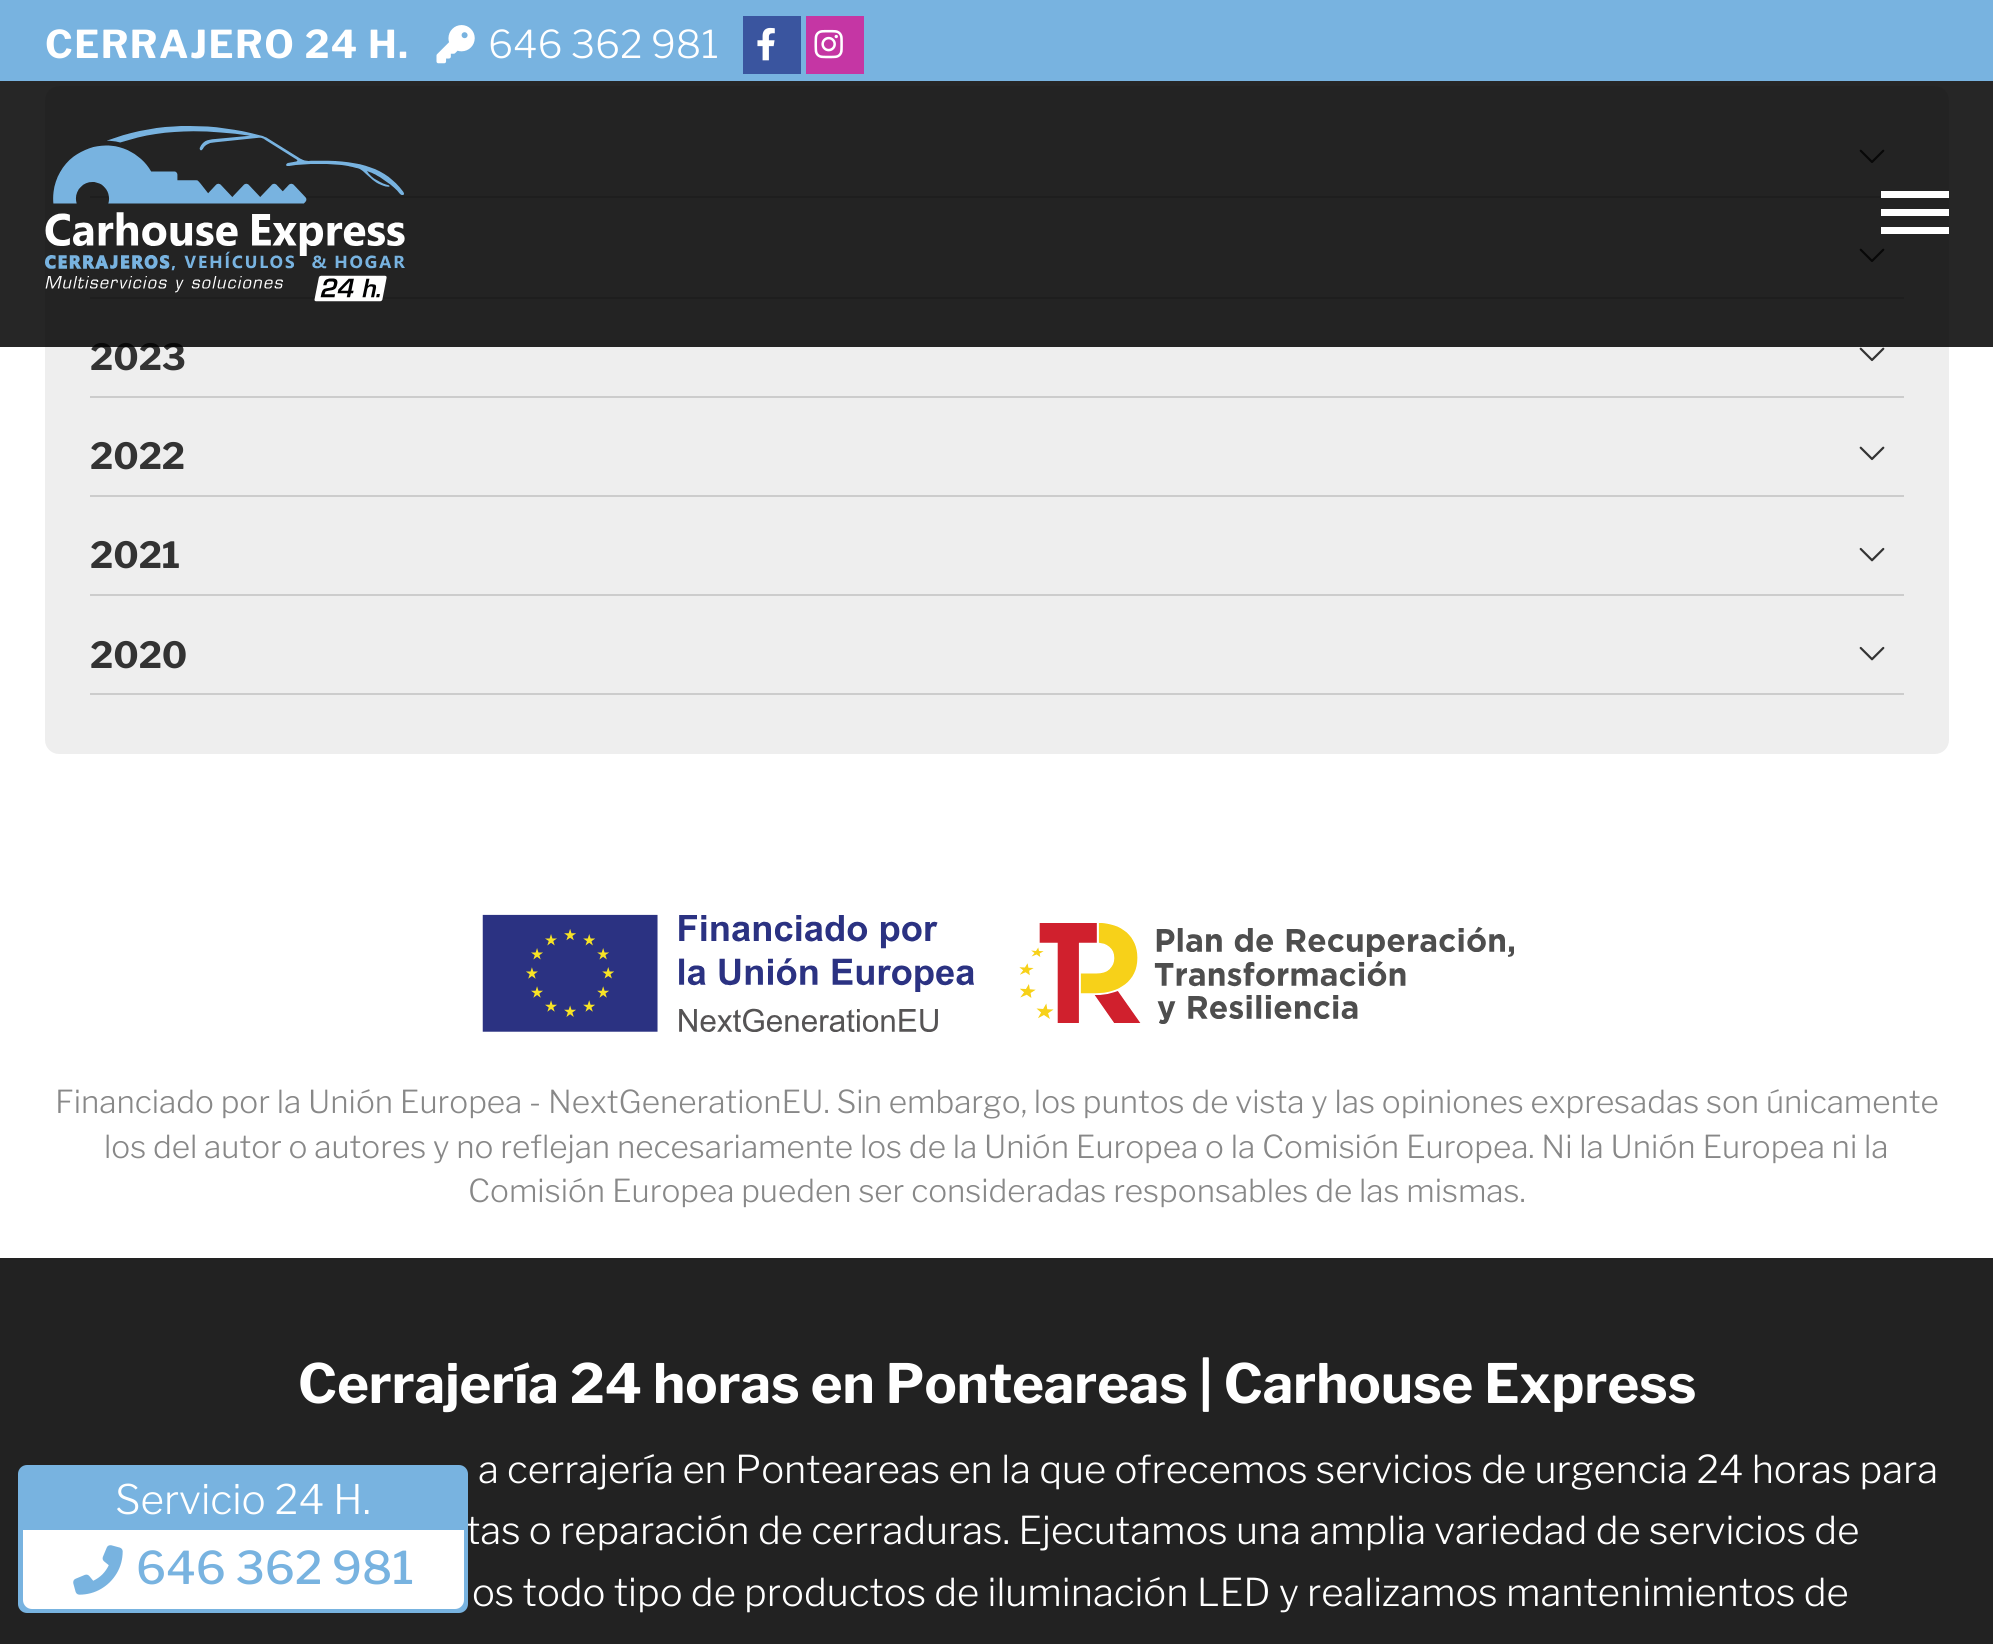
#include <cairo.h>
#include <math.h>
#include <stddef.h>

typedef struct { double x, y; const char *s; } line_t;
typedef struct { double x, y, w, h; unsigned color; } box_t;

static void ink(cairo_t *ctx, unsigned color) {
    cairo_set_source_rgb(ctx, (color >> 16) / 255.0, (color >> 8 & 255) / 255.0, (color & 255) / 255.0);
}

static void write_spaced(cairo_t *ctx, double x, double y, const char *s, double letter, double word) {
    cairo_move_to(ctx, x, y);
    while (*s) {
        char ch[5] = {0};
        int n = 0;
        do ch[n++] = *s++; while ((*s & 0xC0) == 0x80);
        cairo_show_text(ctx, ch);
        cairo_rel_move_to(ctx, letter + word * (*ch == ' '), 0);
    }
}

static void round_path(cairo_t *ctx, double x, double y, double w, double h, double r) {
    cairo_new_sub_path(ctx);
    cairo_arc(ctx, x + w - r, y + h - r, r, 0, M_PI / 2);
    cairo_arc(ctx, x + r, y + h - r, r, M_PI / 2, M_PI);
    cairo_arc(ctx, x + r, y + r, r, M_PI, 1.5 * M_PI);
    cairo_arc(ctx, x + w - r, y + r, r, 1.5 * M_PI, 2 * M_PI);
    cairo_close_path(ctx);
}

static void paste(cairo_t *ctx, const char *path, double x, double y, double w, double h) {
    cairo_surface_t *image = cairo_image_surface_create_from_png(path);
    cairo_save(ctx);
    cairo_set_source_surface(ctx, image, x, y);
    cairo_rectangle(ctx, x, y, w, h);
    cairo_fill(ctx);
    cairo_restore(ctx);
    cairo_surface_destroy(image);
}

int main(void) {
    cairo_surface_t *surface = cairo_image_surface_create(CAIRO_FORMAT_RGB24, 1993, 1644);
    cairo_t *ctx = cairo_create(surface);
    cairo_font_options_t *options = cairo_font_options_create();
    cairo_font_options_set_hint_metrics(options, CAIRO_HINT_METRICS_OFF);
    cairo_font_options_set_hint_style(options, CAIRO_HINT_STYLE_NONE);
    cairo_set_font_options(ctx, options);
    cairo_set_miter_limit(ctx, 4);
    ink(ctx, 0xFFFFFF);
    cairo_paint(ctx);
    ink(ctx, 0x78B3E0);
    cairo_rectangle(ctx, 0, 0, 1993, 81);
    cairo_fill(ctx);
    cairo_select_font_face(ctx, "Libre Franklin", CAIRO_FONT_SLANT_NORMAL, CAIRO_FONT_WEIGHT_BOLD);
    cairo_set_font_size(ctx, 38.25);
    ink(ctx, 0xFFFFFF);
    write_spaced(ctx, 45, 58, "CERRAJERO 24 H.", 1.5, 0);
    paste(ctx, "media/1.png", 436, 25, 39, 39);
    cairo_select_font_face(ctx, "Libre Franklin Light", CAIRO_FONT_SLANT_NORMAL, CAIRO_FONT_WEIGHT_NORMAL);
    cairo_move_to(ctx, 488, 58);
    cairo_show_text(ctx, "646 362 981");
    ink(ctx, 0x3A559F);
    cairo_rectangle(ctx, 743, 16, 58, 58);
    cairo_fill(ctx);
    paste(ctx, "media/2.png", 757, 27, 18, 34);
    ink(ctx, 0xC536A4);
    cairo_rectangle(ctx, 806, 16, 58, 58);
    cairo_fill(ctx);
    paste(ctx, "media/3.png", 814, 29, 29, 30);
    ink(ctx, 0xEEEEEE);
    round_path(ctx, 45, 86, 1904, 668, 14);
    cairo_fill(ctx);
    ink(ctx, 0xCCCCCC);
    cairo_rectangle(ctx, 90, 196, 1791, 2);
    cairo_fill(ctx);
    paste(ctx, "media/5.png", 1859, 149, 26, 15);
    cairo_rectangle(ctx, 90, 297, 1814, 2);
    cairo_fill(ctx);
    paste(ctx, "media/5.png", 1859, 248, 26, 15);
    cairo_select_font_face(ctx, "Libre Franklin", CAIRO_FONT_SLANT_NORMAL, CAIRO_FONT_WEIGHT_BOLD);
    cairo_set_font_size(ctx, 36);
    ink(ctx, 0x333333);
    cairo_move_to(ctx, 90, 370);
    cairo_show_text(ctx, "2023");
    cairo_set_source_rgba(ctx, 0, 0, 0, 0.85);
    cairo_rectangle(ctx, 0, 81, 1993, 266);
    cairo_fill(ctx);
    paste(ctx, "media/4.png", 45, 126, 360, 176);
    {
        static const box_t items[] = {
            {1881, 191, 68, 7, 0xFFFFFF},
            {1881, 209, 68, 7, 0xFFFFFF},
            {1881, 227, 68, 7, 0xFFFFFF},
            {90, 396, 1814, 2, 0xCCCCCC},
        };
        for (size_t i = 0; i < sizeof items / sizeof *items; i++) {
            ink(ctx, items[i].color);
            cairo_rectangle(ctx, items[i].x, items[i].y, items[i].w, items[i].h);
            cairo_fill(ctx);
        }
    }
    paste(ctx, "media/5.png", 1859, 347, 26, 15);
    cairo_rectangle(ctx, 90, 495, 1814, 2);
    cairo_fill(ctx);
    ink(ctx, 0x333333);
    cairo_move_to(ctx, 90, 469);
    cairo_show_text(ctx, "2022");
    paste(ctx, "media/5.png", 1859, 446, 26, 15);
    ink(ctx, 0xCCCCCC);
    cairo_rectangle(ctx, 90, 594, 1814, 2);
    cairo_fill(ctx);
    ink(ctx, 0x333333);
    cairo_move_to(ctx, 90, 568);
    cairo_show_text(ctx, "2021");
    paste(ctx, "media/6.png", 1859, 547, 26, 15);
    ink(ctx, 0xCCCCCC);
    cairo_rectangle(ctx, 90, 693, 1814, 2);
    cairo_fill(ctx);
    ink(ctx, 0x333333);
    cairo_move_to(ctx, 90, 668);
    cairo_show_text(ctx, "2020");
    paste(ctx, "media/6.png", 1859, 646, 26, 15);
    paste(ctx, "media/7.png", 482, 914, 492, 118);
    paste(ctx, "media/8.png", 1019, 923, 495, 101);
    cairo_select_font_face(ctx, "Libre Franklin Light", CAIRO_FONT_SLANT_NORMAL, CAIRO_FONT_WEIGHT_NORMAL);
    cairo_set_font_size(ctx, 31.5);
    ink(ctx, 0x888888);
    {
        static const line_t items[] = {
            {55, 1113, "Financiado por la Unión Europea - NextGenerationEU. Sin embargo, los puntos de vista y las opiniones expresadas son únicamente"},
            {104, 1158, "los del autor o autores y no reflejan necesariamente los de la Unión Europea o la Comisión Europea. Ni la Unión Europea ni la"},
            {468, 1202, "Comisión Europea pueden ser consideradas responsables de las mismas."},
        };
        for (size_t i = 0; i < sizeof items / sizeof *items; i++) {
            cairo_move_to(ctx, items[i].x, items[i].y);
            cairo_show_text(ctx, items[i].s);
        }
    }
    ink(ctx, 0x222222);
    cairo_rectangle(ctx, 0, 1258, 1993, 386);
    cairo_fill(ctx);
    cairo_set_font_size(ctx, 38.25);
    ink(ctx, 0xFFFFFF);
    cairo_move_to(ctx, 466, 1544);
    cairo_show_text(ctx, "tas o reparación de cerraduras. Ejecutamos una amplia variedad de servicios de");
    ink(ctx, 0x78B3E0);
    round_path(ctx, 18, 1465, 450, 148, 9);
    cairo_fill(ctx);
    cairo_set_font_size(ctx, 40.5);
    ink(ctx, 0xFFFFFF);
    cairo_move_to(ctx, 115, 1514);
    cairo_show_text(ctx, "Servicio 24 H.");
    cairo_new_path(ctx);
    cairo_move_to(ctx, 23, 1530);
    cairo_line_to(ctx, 464, 1530);
    cairo_line_to(ctx, 464, 1600);
    cairo_curve_to(ctx, 464, 1605, 460, 1609, 455, 1609);
    cairo_line_to(ctx, 32, 1609);
    cairo_curve_to(ctx, 27, 1609, 23, 1605, 23, 1600);
    cairo_close_path(ctx);
    cairo_fill(ctx);
    paste(ctx, "media/9.png", 73, 1545, 50, 50);
    cairo_select_font_face(ctx, "Libre Franklin Medium", CAIRO_FONT_SLANT_NORMAL, CAIRO_FONT_WEIGHT_NORMAL);
    cairo_set_font_size(ctx, 45);
    ink(ctx, 0x78B3E0);
    cairo_move_to(ctx, 136, 1584);
    cairo_show_text(ctx, "646 362 981");
    cairo_select_font_face(ctx, "Libre Franklin", CAIRO_FONT_SLANT_NORMAL, CAIRO_FONT_WEIGHT_BOLD);
    cairo_set_font_size(ctx, 54);
    ink(ctx, 0xFFFFFF);
    cairo_move_to(ctx, 298, 1403);
    cairo_show_text(ctx, "Cerrajería 24 horas en Ponteareas | Carhouse Express");
    cairo_select_font_face(ctx, "Libre Franklin Light", CAIRO_FONT_SLANT_NORMAL, CAIRO_FONT_WEIGHT_NORMAL);
    cairo_set_font_size(ctx, 38.25);
    cairo_move_to(ctx, 478, 1483);
    cairo_show_text(ctx, "a cerrajería en Ponteareas en la que ofrecemos servicios de urgencia 24 horas para");
    cairo_move_to(ctx, 472, 1606);
    cairo_show_text(ctx, "os todo tipo de productos de iluminación LED y realizamos mantenimientos de");
    cairo_surface_write_to_png(surface, "image.png");
    cairo_font_options_destroy(options);
    cairo_destroy(ctx);
    cairo_surface_destroy(surface);
    return 0;
}
